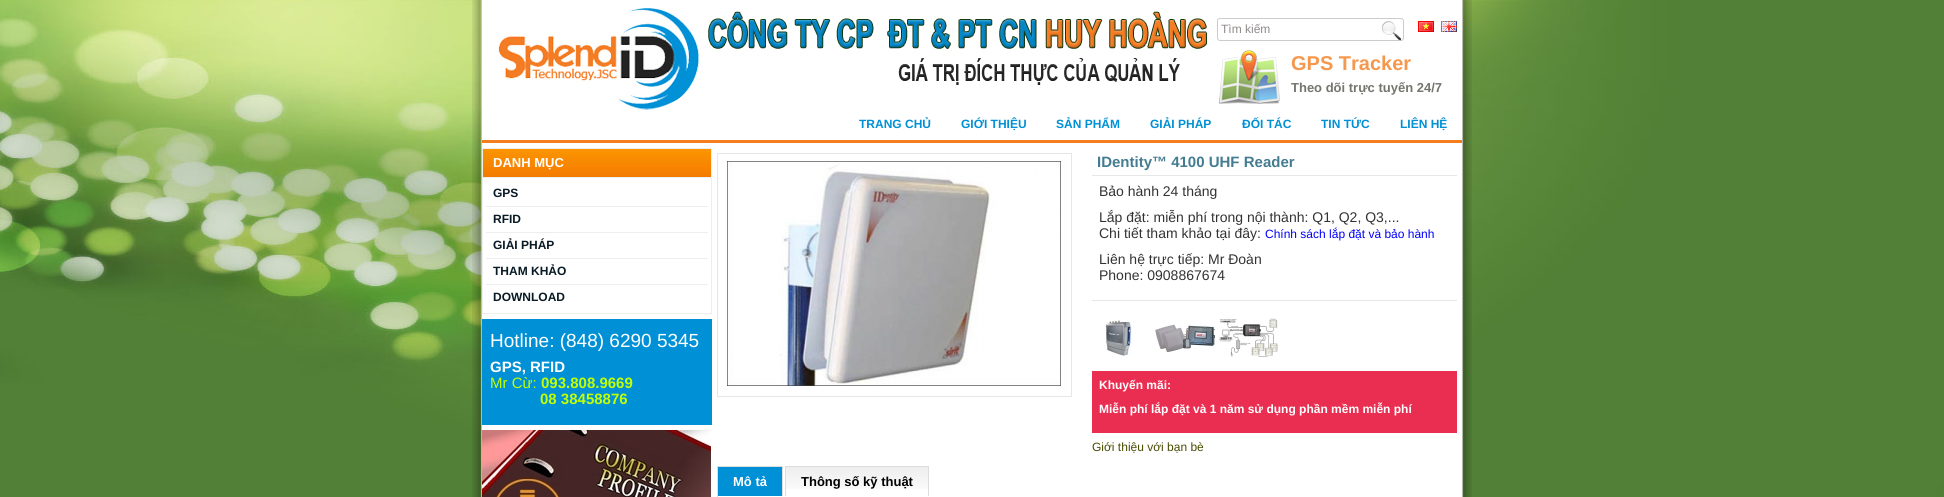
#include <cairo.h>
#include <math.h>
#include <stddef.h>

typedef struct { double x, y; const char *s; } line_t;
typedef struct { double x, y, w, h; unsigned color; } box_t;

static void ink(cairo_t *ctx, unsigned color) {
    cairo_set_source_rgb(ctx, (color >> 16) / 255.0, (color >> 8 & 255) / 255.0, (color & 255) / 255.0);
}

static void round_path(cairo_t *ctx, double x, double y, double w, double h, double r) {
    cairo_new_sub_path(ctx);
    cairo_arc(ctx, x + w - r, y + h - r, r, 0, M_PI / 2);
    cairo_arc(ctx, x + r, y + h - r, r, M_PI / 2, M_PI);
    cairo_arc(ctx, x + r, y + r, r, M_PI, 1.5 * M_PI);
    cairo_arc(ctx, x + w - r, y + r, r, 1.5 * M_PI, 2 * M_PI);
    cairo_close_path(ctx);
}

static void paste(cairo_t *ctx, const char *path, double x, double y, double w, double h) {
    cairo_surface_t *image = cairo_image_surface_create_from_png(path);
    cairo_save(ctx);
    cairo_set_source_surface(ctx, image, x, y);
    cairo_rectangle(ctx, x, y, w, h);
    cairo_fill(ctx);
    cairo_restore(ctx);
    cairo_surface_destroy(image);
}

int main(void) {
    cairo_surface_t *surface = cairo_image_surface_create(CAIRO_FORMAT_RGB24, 1944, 497);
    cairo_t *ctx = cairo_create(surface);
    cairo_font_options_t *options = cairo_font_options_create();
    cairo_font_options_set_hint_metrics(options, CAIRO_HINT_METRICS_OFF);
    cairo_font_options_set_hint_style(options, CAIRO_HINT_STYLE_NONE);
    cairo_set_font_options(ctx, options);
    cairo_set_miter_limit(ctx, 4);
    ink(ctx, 0xFFFFFF);
    cairo_paint(ctx);
    paste(ctx, "media/1.png", 0, 0, 1944, 497);
    paste(ctx, "media/2.png", 472, 0, 1000, 497);
    paste(ctx, "media/3.png", 482, 0, 980, 140);
    ink(ctx, 0xF37E21);
    cairo_rectangle(ctx, 482, 140, 980, 3);
    cairo_fill(ctx);
    round_path(ctx, 1217.5, 18.5, 186, 22, 2.5);
    ink(ctx, 0xCCCCCC);
    cairo_set_line_width(ctx, 1);
    cairo_stroke(ctx);
    cairo_select_font_face(ctx, "Liberation Sans", CAIRO_FONT_SLANT_NORMAL, CAIRO_FONT_WEIGHT_NORMAL);
    cairo_set_font_size(ctx, 12);
    ink(ctx, 0x918A8A);
    cairo_move_to(ctx, 1221, 33);
    cairo_show_text(ctx, "Tìm kiếm");
    paste(ctx, "media/4.png", 1381, 21, 20, 20);
    paste(ctx, "media/5.png", 1418, 21, 16, 11);
    paste(ctx, "media/6.png", 1441, 21, 16, 11);
    paste(ctx, "media/7.png", 1219, 50, 61, 54);
    cairo_select_font_face(ctx, "Liberation Sans", CAIRO_FONT_SLANT_NORMAL, CAIRO_FONT_WEIGHT_BOLD);
    cairo_set_font_size(ctx, 20);
    ink(ctx, 0xF5984D);
    cairo_move_to(ctx, 1291, 70);
    cairo_show_text(ctx, "GPS Tracker");
    cairo_set_font_size(ctx, 13);
    ink(ctx, 0x74756D);
    cairo_move_to(ctx, 1291, 92);
    cairo_show_text(ctx, "Theo dõi trực tuyến 24/7");
    cairo_set_font_size(ctx, 12);
    ink(ctx, 0x0090D6);
    {
        static const line_t items[] = {
            {859, 128, "TRANG CHỦ"},
            {961, 128, "GIỚI THIỆU"},
            {1056, 128, "SẢN PHẨM"},
            {1150, 128, "GIẢI PHÁP"},
            {1242, 128, "ĐỐI TÁC"},
            {1321, 128, "TIN TỨC"},
            {1400, 128, "LIÊN HỆ"},
        };
        for (size_t i = 0; i < sizeof items / sizeof *items; i++) {
            cairo_move_to(ctx, items[i].x, items[i].y);
            cairo_show_text(ctx, items[i].s);
        }
    }
    paste(ctx, "media/8.png", 483, 149, 228, 28);
    {
        static const box_t items[] = {
            {482, 148, 230, 1, 0xEEEEEE},
            {711, 148, 1, 29, 0xEEEEEE},
            {482, 148, 1, 29, 0xEEEEEE},
        };
        for (size_t i = 0; i < sizeof items / sizeof *items; i++) {
            ink(ctx, items[i].color);
            cairo_rectangle(ctx, items[i].x, items[i].y, items[i].w, items[i].h);
            cairo_fill(ctx);
        }
    }
    cairo_set_font_size(ctx, 13);
    ink(ctx, 0xFFFFFF);
    cairo_move_to(ctx, 493, 167);
    cairo_show_text(ctx, "DANH MỤC");
    cairo_rectangle(ctx, 482.5, 177.5, 229, 136);
    ink(ctx, 0xEEEEEE);
    cairo_stroke(ctx);
    cairo_set_font_size(ctx, 12);
    ink(ctx, 0x081A25);
    cairo_move_to(ctx, 493, 197);
    cairo_show_text(ctx, "GPS");
    ink(ctx, 0xEEEEEE);
    cairo_rectangle(ctx, 486, 206, 222, 1);
    cairo_fill(ctx);
    ink(ctx, 0x081A25);
    cairo_move_to(ctx, 493, 223);
    cairo_show_text(ctx, "RFID");
    ink(ctx, 0xEEEEEE);
    cairo_rectangle(ctx, 486, 232, 222, 1);
    cairo_fill(ctx);
    ink(ctx, 0x081A25);
    cairo_move_to(ctx, 493, 249);
    cairo_show_text(ctx, "GIẢI PHÁP");
    ink(ctx, 0xEEEEEE);
    cairo_rectangle(ctx, 486, 258, 222, 1);
    cairo_fill(ctx);
    ink(ctx, 0x081A25);
    cairo_move_to(ctx, 493, 275);
    cairo_show_text(ctx, "THAM KHẢO");
    ink(ctx, 0xEEEEEE);
    cairo_rectangle(ctx, 486, 284, 222, 1);
    cairo_fill(ctx);
    ink(ctx, 0x081A25);
    cairo_move_to(ctx, 493, 301);
    cairo_show_text(ctx, "DOWNLOAD");
    ink(ctx, 0x0090D6);
    cairo_rectangle(ctx, 482, 319, 230, 106);
    cairo_fill(ctx);
    cairo_select_font_face(ctx, "Liberation Sans", CAIRO_FONT_SLANT_NORMAL, CAIRO_FONT_WEIGHT_NORMAL);
    cairo_set_font_size(ctx, 19);
    ink(ctx, 0xFFFFFF);
    cairo_move_to(ctx, 490, 347);
    cairo_show_text(ctx, "Hotline: (848) 6290 5345");
    cairo_select_font_face(ctx, "Liberation Sans", CAIRO_FONT_SLANT_NORMAL, CAIRO_FONT_WEIGHT_BOLD);
    cairo_set_font_size(ctx, 15);
    cairo_move_to(ctx, 490, 372);
    cairo_show_text(ctx, "GPS, RFID");
    cairo_select_font_face(ctx, "Liberation Sans", CAIRO_FONT_SLANT_NORMAL, CAIRO_FONT_WEIGHT_NORMAL);
    ink(ctx, 0xC1FF06);
    cairo_move_to(ctx, 490, 388);
    cairo_show_text(ctx, "Mr Cừ:");
    cairo_select_font_face(ctx, "Liberation Sans", CAIRO_FONT_SLANT_NORMAL, CAIRO_FONT_WEIGHT_BOLD);
    cairo_move_to(ctx, 541, 388);
    cairo_show_text(ctx, "093.808.9669");
    cairo_move_to(ctx, 540, 404);
    cairo_show_text(ctx, "08 38458876");
    paste(ctx, "media/9.png", 482, 430, 229, 67);
    cairo_rectangle(ctx, 717.5, 153.5, 354, 243);
    ink(ctx, 0xE7E7E7);
    cairo_stroke(ctx);
    paste(ctx, "media/10.png", 727, 161, 334, 225);
    cairo_rectangle(ctx, 1092, 175, 365, 1);
    cairo_fill(ctx);
    ink(ctx, 0x447C92);
    cairo_move_to(ctx, 1097, 167);
    cairo_show_text(ctx, "IDentity™ 4100 UHF Reader");
    cairo_select_font_face(ctx, "Liberation Sans", CAIRO_FONT_SLANT_NORMAL, CAIRO_FONT_WEIGHT_NORMAL);
    cairo_set_font_size(ctx, 14);
    ink(ctx, 0x333333);
    {
        static const line_t items[] = {
            {1099, 196, "Bảo hành 24 tháng"},
            {1099, 222, "Lắp đặt: miễn phí trong nội thành: Q1, Q2, Q3,..."},
            {1099, 238, "Chi tiết tham khảo tại đây:"},
        };
        for (size_t i = 0; i < sizeof items / sizeof *items; i++) {
            cairo_move_to(ctx, items[i].x, items[i].y);
            cairo_show_text(ctx, items[i].s);
        }
    }
    cairo_set_font_size(ctx, 12);
    ink(ctx, 0x0000FF);
    cairo_move_to(ctx, 1265, 238);
    cairo_show_text(ctx, "Chính sách lắp đặt và bảo hành");
    cairo_set_font_size(ctx, 14);
    ink(ctx, 0x333333);
    cairo_move_to(ctx, 1099, 264);
    cairo_show_text(ctx, "Liên hệ trực tiếp: Mr Đoàn");
    cairo_move_to(ctx, 1099, 280);
    cairo_show_text(ctx, "Phone: 0908867674");
    ink(ctx, 0xE7E7E7);
    cairo_rectangle(ctx, 1092, 300, 365, 1);
    cairo_fill(ctx);
    paste(ctx, "media/11.png", 1105, 320, 27, 36);
    paste(ctx, "media/12.png", 1155, 324, 60, 28);
    paste(ctx, "media/13.png", 1219, 318, 59, 39);
    ink(ctx, 0xEA2E51);
    cairo_rectangle(ctx, 1092, 371, 365, 62);
    cairo_fill(ctx);
    cairo_select_font_face(ctx, "Liberation Sans", CAIRO_FONT_SLANT_NORMAL, CAIRO_FONT_WEIGHT_BOLD);
    cairo_set_font_size(ctx, 12);
    ink(ctx, 0xFFFFFF);
    cairo_move_to(ctx, 1099, 389);
    cairo_show_text(ctx, "Khuyến mãi:");
    cairo_move_to(ctx, 1099, 413);
    cairo_show_text(ctx, "Miễn phí lắp đặt và 1 năm sử dụng phần mềm miễn phí");
    cairo_select_font_face(ctx, "Liberation Sans", CAIRO_FONT_SLANT_NORMAL, CAIRO_FONT_WEIGHT_NORMAL);
    ink(ctx, 0x484C02);
    cairo_move_to(ctx, 1092, 451);
    cairo_show_text(ctx, "Giới thiệu với bạn bè");
    {
        static const box_t items[] = {
            {718, 467, 64, 29, 0x0090D6},
            {717, 466, 66, 1, 0xDDDDDD},
            {782, 466, 1, 31, 0xDDDDDD},
            {782, 496, 1, 1, 0xFFFFFF},
            {717, 466, 1, 31, 0xDDDDDD},
        };
        for (size_t i = 0; i < sizeof items / sizeof *items; i++) {
            ink(ctx, items[i].color);
            cairo_rectangle(ctx, items[i].x, items[i].y, items[i].w, items[i].h);
            cairo_fill(ctx);
        }
    }
    cairo_select_font_face(ctx, "Liberation Sans", CAIRO_FONT_SLANT_NORMAL, CAIRO_FONT_WEIGHT_BOLD);
    cairo_set_font_size(ctx, 13);
    ink(ctx, 0xFFFFFF);
    cairo_move_to(ctx, 733, 486);
    cairo_show_text(ctx, "Mô tả");
    paste(ctx, "media/14.png", 786, 467, 142, 22);
    {
        static const box_t items[] = {
            {785, 466, 144, 1, 0xDDDDDD},
            {928, 466, 1, 30, 0xDDDDDD},
            {785, 466, 1, 30, 0xDDDDDD},
        };
        for (size_t i = 0; i < sizeof items / sizeof *items; i++) {
            ink(ctx, items[i].color);
            cairo_rectangle(ctx, items[i].x, items[i].y, items[i].w, items[i].h);
            cairo_fill(ctx);
        }
    }
    ink(ctx, 0x000000);
    cairo_move_to(ctx, 801, 486);
    cairo_show_text(ctx, "Thông số kỹ thuật");
    cairo_surface_write_to_png(surface, "image.png");
    cairo_font_options_destroy(options);
    cairo_destroy(ctx);
    cairo_surface_destroy(surface);
    return 0;
}
